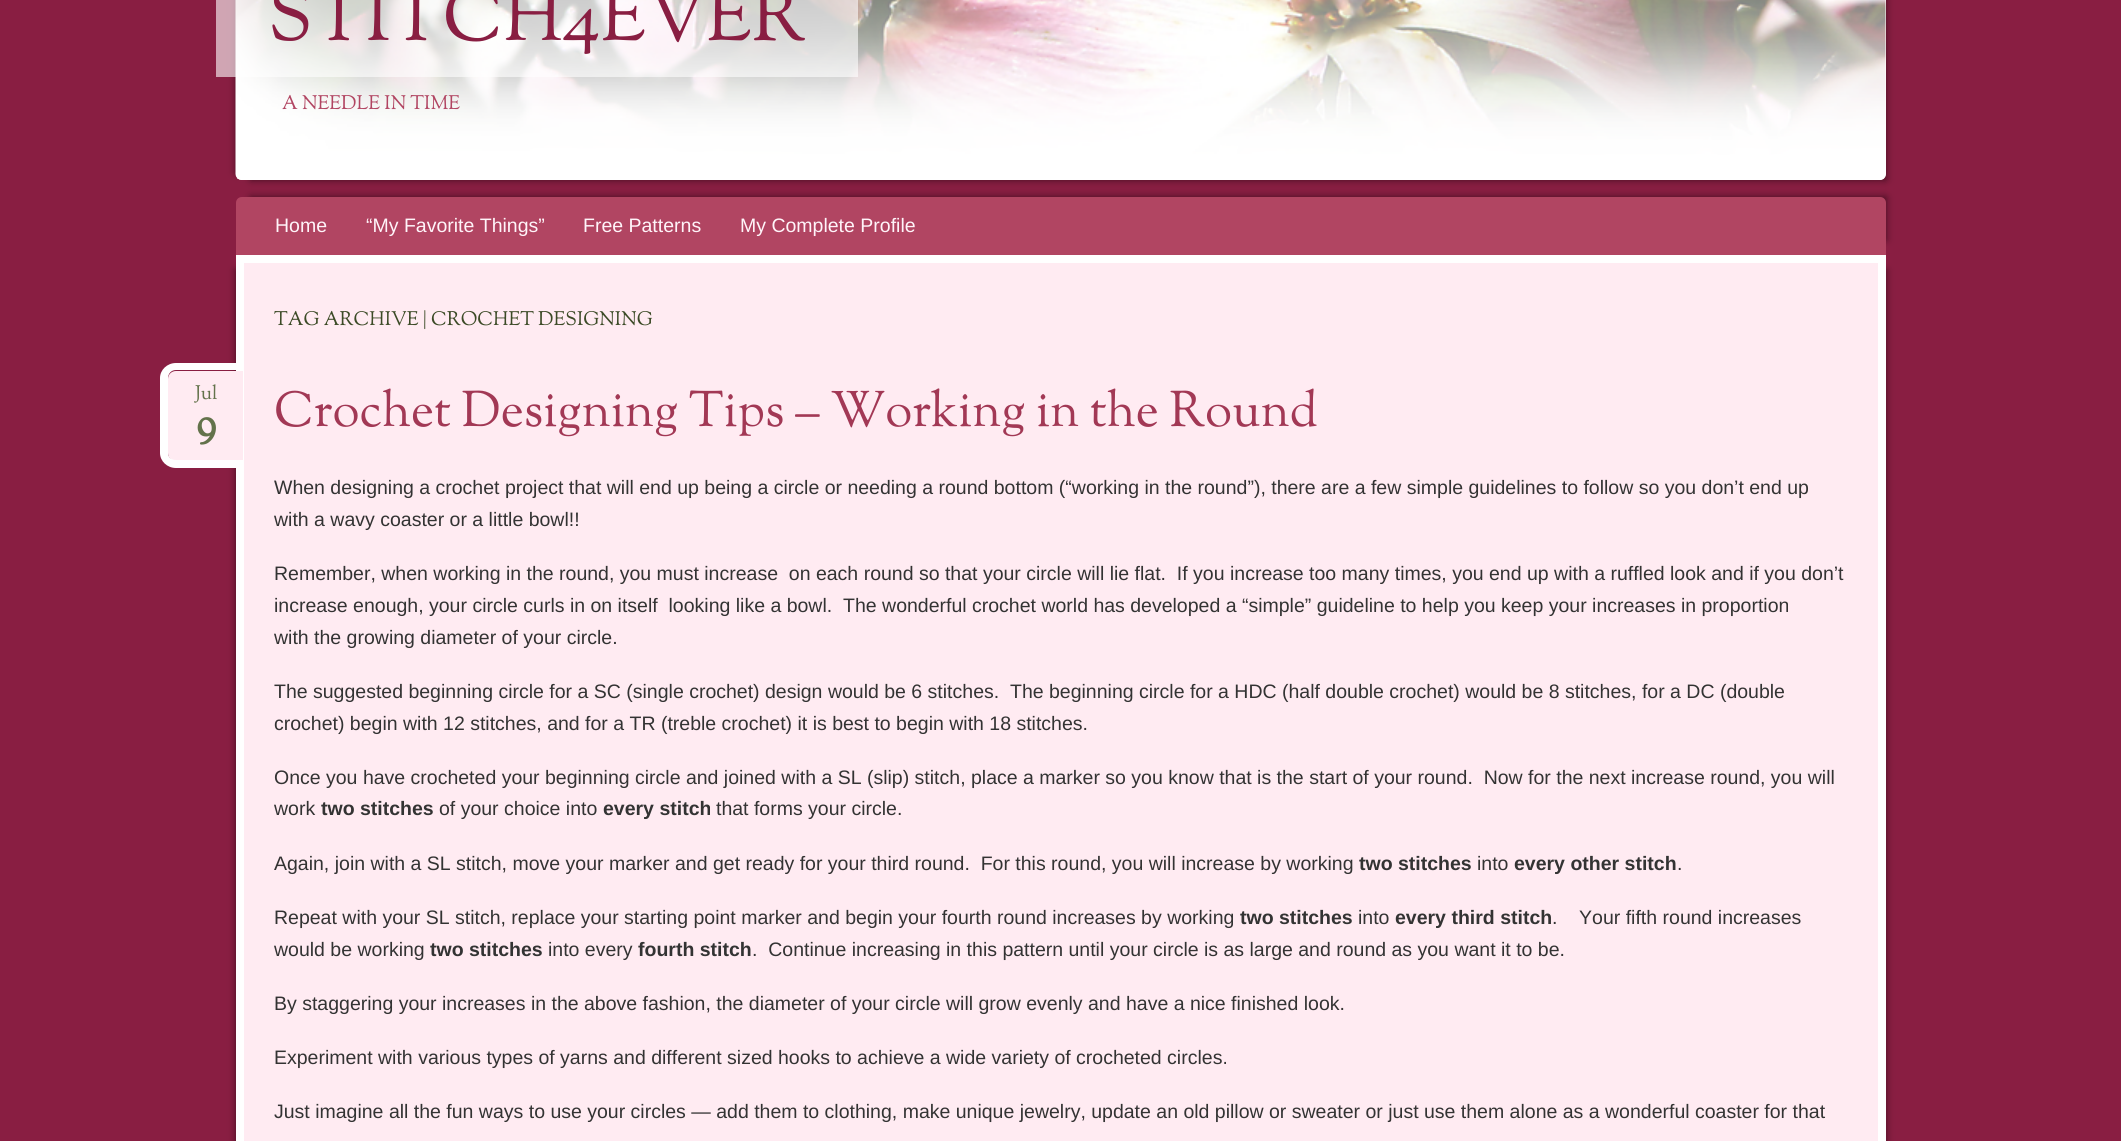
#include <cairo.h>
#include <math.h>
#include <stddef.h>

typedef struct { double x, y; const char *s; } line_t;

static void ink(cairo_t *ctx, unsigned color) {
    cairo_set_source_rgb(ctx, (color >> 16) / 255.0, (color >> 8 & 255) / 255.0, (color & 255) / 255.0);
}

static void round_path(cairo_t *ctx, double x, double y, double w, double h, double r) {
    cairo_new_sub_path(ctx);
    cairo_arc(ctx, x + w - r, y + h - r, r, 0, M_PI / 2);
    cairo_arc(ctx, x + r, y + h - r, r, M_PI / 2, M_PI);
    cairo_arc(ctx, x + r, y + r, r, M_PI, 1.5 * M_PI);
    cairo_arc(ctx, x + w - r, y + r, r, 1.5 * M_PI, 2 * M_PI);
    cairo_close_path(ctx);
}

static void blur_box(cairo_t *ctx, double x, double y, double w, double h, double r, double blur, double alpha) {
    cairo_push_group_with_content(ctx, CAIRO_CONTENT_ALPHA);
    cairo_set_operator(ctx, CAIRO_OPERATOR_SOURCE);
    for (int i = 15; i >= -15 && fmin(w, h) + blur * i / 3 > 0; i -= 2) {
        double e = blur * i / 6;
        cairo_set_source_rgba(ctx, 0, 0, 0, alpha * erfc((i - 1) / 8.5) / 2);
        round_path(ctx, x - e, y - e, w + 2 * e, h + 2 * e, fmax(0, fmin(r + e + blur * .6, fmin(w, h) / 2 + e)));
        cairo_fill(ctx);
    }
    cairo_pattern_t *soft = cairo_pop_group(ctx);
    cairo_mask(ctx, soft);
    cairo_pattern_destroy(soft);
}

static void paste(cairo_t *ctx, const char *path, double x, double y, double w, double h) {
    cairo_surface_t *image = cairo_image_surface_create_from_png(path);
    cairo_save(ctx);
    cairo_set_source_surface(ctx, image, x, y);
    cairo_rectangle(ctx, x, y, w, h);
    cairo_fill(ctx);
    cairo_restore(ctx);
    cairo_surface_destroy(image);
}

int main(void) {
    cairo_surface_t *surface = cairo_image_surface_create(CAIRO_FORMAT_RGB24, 2121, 1141);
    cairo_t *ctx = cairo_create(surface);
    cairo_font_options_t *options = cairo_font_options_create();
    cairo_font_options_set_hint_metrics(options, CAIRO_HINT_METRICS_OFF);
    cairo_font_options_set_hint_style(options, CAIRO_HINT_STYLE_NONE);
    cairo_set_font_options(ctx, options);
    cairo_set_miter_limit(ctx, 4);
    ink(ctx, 0x891E42);
    cairo_paint(ctx);
    ink(ctx, 0x000000);
    blur_box(ctx, 236, -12, 1635, 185, 0, 4, 0.5);
    blur_box(ctx, 251, -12, 1635, 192, 0, 4, 0.5);
    ink(ctx, 0xFFFFFF);
    round_path(ctx, 236, -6, 1650, 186, 6);
    cairo_fill(ctx);
    paste(ctx, "media/1.png", 235, 0, 1651, 180);
    cairo_set_source_rgba(ctx, 1, 1, 1, 0.6);
    cairo_rectangle(ctx, 216, 0, 642, 77);
    cairo_fill(ctx);
    cairo_select_font_face(ctx, "Sorts Mill Goudy", CAIRO_FONT_SLANT_NORMAL, CAIRO_FONT_WEIGHT_NORMAL);
    cairo_set_font_size(ctx, 75);
    ink(ctx, 0x891E42);
    cairo_move_to(ctx, 268, 40);
    cairo_show_text(ctx, "STITCH4EVER");
    cairo_set_font_size(ctx, 19.5);
    ink(ctx, 0xB14562);
    cairo_move_to(ctx, 282, 109);
    cairo_show_text(ctx, "A NEEDLE IN TIME");
    ink(ctx, 0x000000);
    blur_box(ctx, 251, 197, 1635, 43, 0, 4, 0.5);
    ink(ctx, 0xB14562);
    cairo_new_path(ctx);
    cairo_move_to(ctx, 242, 197);
    cairo_line_to(ctx, 1880, 197);
    cairo_curve_to(ctx, 1883.5, 197, 1886, 199.5, 1886, 203);
    cairo_line_to(ctx, 1886, 255);
    cairo_line_to(ctx, 236, 255);
    cairo_line_to(ctx, 236, 203);
    cairo_curve_to(ctx, 236, 199.5, 238.5, 197, 242, 197);
    cairo_close_path(ctx);
    cairo_fill(ctx);
    cairo_select_font_face(ctx, "Liberation Sans", CAIRO_FONT_SLANT_NORMAL, CAIRO_FONT_WEIGHT_NORMAL);
    ink(ctx, 0xFFF4F9);
    {
        static const line_t items[] = {
            {275, 232, "Home"},
            {366, 232, "“My Favorite Things”"},
            {583, 232, "Free Patterns"},
            {740, 232, "My Complete Profile"},
        };
        for (size_t i = 0; i < sizeof items / sizeof *items; i++) {
            cairo_move_to(ctx, items[i].x, items[i].y);
            cairo_show_text(ctx, items[i].s);
        }
    }
    ink(ctx, 0x000000);
    blur_box(ctx, 236, 270, 1635, 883, 0, 4, 0.5);
    blur_box(ctx, 251, 270, 1635, 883, 0, 4, 0.5);
    ink(ctx, 0xFFEBF2);
    cairo_rectangle(ctx, 240, 259, 1642, 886);
    cairo_fill_preserve(ctx);
    ink(ctx, 0xFFFFFF);
    cairo_set_line_width(ctx, 8);
    cairo_stroke(ctx);
    cairo_select_font_face(ctx, "Sorts Mill Goudy", CAIRO_FONT_SLANT_NORMAL, CAIRO_FONT_WEIGHT_NORMAL);
    ink(ctx, 0x3B4A26);
    cairo_move_to(ctx, 274, 325);
    cairo_show_text(ctx, "TAG ARCHIVE | CROCHET DESIGNING");
    ink(ctx, 0xFFEBF2);
    cairo_new_path(ctx);
    cairo_move_to(ctx, 176, 371);
    cairo_line_to(ctx, 243, 371);
    cairo_line_to(ctx, 243, 461);
    cairo_line_to(ctx, 176, 461);
    cairo_curve_to(ctx, 171.5, 461, 168, 457.5, 168, 453);
    cairo_line_to(ctx, 168, 379);
    cairo_curve_to(ctx, 168, 374.5, 171.5, 371, 176, 371);
    cairo_close_path(ctx);
    cairo_fill(ctx);
    ink(ctx, 0xFFFFFF);
    cairo_set_fill_rule(ctx, CAIRO_FILL_RULE_EVEN_ODD);
    cairo_new_path(ctx);
    cairo_move_to(ctx, 176, 363);
    cairo_line_to(ctx, 243, 363);
    cairo_line_to(ctx, 243, 468);
    cairo_line_to(ctx, 176, 468);
    cairo_curve_to(ctx, 167, 468, 160, 461, 160, 453);
    cairo_line_to(ctx, 160, 378);
    cairo_curve_to(ctx, 160, 370, 167, 363, 176, 363);
    cairo_close_path(ctx);
    cairo_move_to(ctx, 176, 370);
    cairo_line_to(ctx, 243, 370);
    cairo_line_to(ctx, 243, 460);
    cairo_line_to(ctx, 176, 460);
    cairo_curve_to(ctx, 171, 460, 168, 457, 168, 453);
    cairo_line_to(ctx, 168, 378);
    cairo_curve_to(ctx, 168, 374, 171, 370, 176, 370);
    cairo_close_path(ctx);
    cairo_fill(ctx);
    ink(ctx, 0x63724B);
    cairo_move_to(ctx, 195, 399);
    cairo_show_text(ctx, "Jul");
    cairo_select_font_face(ctx, "Sorts Mill Goudy", CAIRO_FONT_SLANT_NORMAL, CAIRO_FONT_WEIGHT_BOLD);
    cairo_set_font_size(ctx, 42);
    cairo_move_to(ctx, 196, 436);
    cairo_show_text(ctx, "9");
    cairo_select_font_face(ctx, "Sorts Mill Goudy", CAIRO_FONT_SLANT_NORMAL, CAIRO_FONT_WEIGHT_NORMAL);
    cairo_set_font_size(ctx, 49.5);
    ink(ctx, 0xA23855);
    cairo_move_to(ctx, 274, 426);
    cairo_show_text(ctx, "Crochet Designing Tips – Working in the Round");
    cairo_select_font_face(ctx, "Liberation Sans", CAIRO_FONT_SLANT_NORMAL, CAIRO_FONT_WEIGHT_NORMAL);
    cairo_set_font_size(ctx, 19.5);
    ink(ctx, 0x333333);
    {
        static const line_t items[] = {
            {274, 494, "When designing a crochet project that will end up being a circle or needing a round bottom (“working in the round”), there are a few simple guidelines to follow so you don’t end up"},
            {274, 526, "with a wavy coaster or a little bowl!!"},
            {274, 580, "Remember, when working in the round, you must increase  on each round so that your circle will lie flat.  If you increase too many times, you end up with a ruffled look and if you don’t"},
            {274, 612, "increase enough, your circle curls in on itself  looking like a bowl.  The wonderful crochet world has developed a “simple” guideline to help you keep your increases in proportion"},
            {274, 644, "with the growing diameter of your circle."},
            {274, 698, "The suggested beginning circle for a SC (single crochet) design would be 6 stitches.  The beginning circle for a HDC (half double crochet) would be 8 stitches, for a DC (double"},
            {274, 730, "crochet) begin with 12 stitches, and for a TR (treble crochet) it is best to begin with 18 stitches."},
            {274, 784, "Once you have crocheted your beginning circle and joined with a SL (slip) stitch, place a marker so you know that is the start of your round.  Now for the next increase round, you will"},
            {274, 815, "work"},
        };
        for (size_t i = 0; i < sizeof items / sizeof *items; i++) {
            cairo_move_to(ctx, items[i].x, items[i].y);
            cairo_show_text(ctx, items[i].s);
        }
    }
    cairo_select_font_face(ctx, "Liberation Sans", CAIRO_FONT_SLANT_NORMAL, CAIRO_FONT_WEIGHT_BOLD);
    cairo_move_to(ctx, 321, 815);
    cairo_show_text(ctx, "two stitches");
    cairo_select_font_face(ctx, "Liberation Sans", CAIRO_FONT_SLANT_NORMAL, CAIRO_FONT_WEIGHT_NORMAL);
    cairo_move_to(ctx, 439, 815);
    cairo_show_text(ctx, "of your choice into");
    cairo_select_font_face(ctx, "Liberation Sans", CAIRO_FONT_SLANT_NORMAL, CAIRO_FONT_WEIGHT_BOLD);
    cairo_move_to(ctx, 603, 815);
    cairo_show_text(ctx, "every stitch");
    cairo_select_font_face(ctx, "Liberation Sans", CAIRO_FONT_SLANT_NORMAL, CAIRO_FONT_WEIGHT_NORMAL);
    cairo_move_to(ctx, 716, 815);
    cairo_show_text(ctx, "that forms your circle.");
    cairo_move_to(ctx, 274, 870);
    cairo_show_text(ctx, "Again, join with a SL stitch, move your marker and get ready for your third round.  For this round, you will increase by working");
    cairo_select_font_face(ctx, "Liberation Sans", CAIRO_FONT_SLANT_NORMAL, CAIRO_FONT_WEIGHT_BOLD);
    cairo_move_to(ctx, 1359, 870);
    cairo_show_text(ctx, "two stitches");
    cairo_select_font_face(ctx, "Liberation Sans", CAIRO_FONT_SLANT_NORMAL, CAIRO_FONT_WEIGHT_NORMAL);
    cairo_move_to(ctx, 1477, 870);
    cairo_show_text(ctx, "into");
    cairo_select_font_face(ctx, "Liberation Sans", CAIRO_FONT_SLANT_NORMAL, CAIRO_FONT_WEIGHT_BOLD);
    cairo_move_to(ctx, 1514, 870);
    cairo_show_text(ctx, "every other stitch");
    cairo_select_font_face(ctx, "Liberation Sans", CAIRO_FONT_SLANT_NORMAL, CAIRO_FONT_WEIGHT_NORMAL);
    cairo_move_to(ctx, 1677, 870);
    cairo_show_text(ctx, ".");
    cairo_move_to(ctx, 274, 924);
    cairo_show_text(ctx, "Repeat with your SL stitch, replace your starting point marker and begin your fourth round increases by working");
    cairo_select_font_face(ctx, "Liberation Sans", CAIRO_FONT_SLANT_NORMAL, CAIRO_FONT_WEIGHT_BOLD);
    cairo_move_to(ctx, 1240, 924);
    cairo_show_text(ctx, "two stitches");
    cairo_select_font_face(ctx, "Liberation Sans", CAIRO_FONT_SLANT_NORMAL, CAIRO_FONT_WEIGHT_NORMAL);
    cairo_move_to(ctx, 1358, 924);
    cairo_show_text(ctx, "into");
    cairo_select_font_face(ctx, "Liberation Sans", CAIRO_FONT_SLANT_NORMAL, CAIRO_FONT_WEIGHT_BOLD);
    cairo_move_to(ctx, 1395, 924);
    cairo_show_text(ctx, "every third stitch");
    cairo_select_font_face(ctx, "Liberation Sans", CAIRO_FONT_SLANT_NORMAL, CAIRO_FONT_WEIGHT_NORMAL);
    cairo_move_to(ctx, 1552, 924);
    cairo_show_text(ctx, ".    Your fifth round increases");
    cairo_move_to(ctx, 274, 956);
    cairo_show_text(ctx, "would be working");
    cairo_select_font_face(ctx, "Liberation Sans", CAIRO_FONT_SLANT_NORMAL, CAIRO_FONT_WEIGHT_BOLD);
    cairo_move_to(ctx, 430, 956);
    cairo_show_text(ctx, "two stitches");
    cairo_select_font_face(ctx, "Liberation Sans", CAIRO_FONT_SLANT_NORMAL, CAIRO_FONT_WEIGHT_NORMAL);
    cairo_move_to(ctx, 548, 956);
    cairo_show_text(ctx, "into every");
    cairo_select_font_face(ctx, "Liberation Sans", CAIRO_FONT_SLANT_NORMAL, CAIRO_FONT_WEIGHT_BOLD);
    cairo_move_to(ctx, 638, 956);
    cairo_show_text(ctx, "fourth stitch");
    cairo_select_font_face(ctx, "Liberation Sans", CAIRO_FONT_SLANT_NORMAL, CAIRO_FONT_WEIGHT_NORMAL);
    {
        static const line_t items[] = {
            {752, 956, ".  Continue increasing in this pattern until your circle is as large and round as you want it to be."},
            {274, 1010, "By staggering your increases in the above fashion, the diameter of your circle will grow evenly and have a nice finished look."},
            {274, 1064, "Experiment with various types of yarns and different sized hooks to achieve a wide variety of crocheted circles."},
            {274, 1118, "Just imagine all the fun ways to use your circles — add them to clothing, make unique jewelry, update an old pillow or sweater or just use them alone as a wonderful coaster for that"},
        };
        for (size_t i = 0; i < sizeof items / sizeof *items; i++) {
            cairo_move_to(ctx, items[i].x, items[i].y);
            cairo_show_text(ctx, items[i].s);
        }
    }
    cairo_surface_write_to_png(surface, "image.png");
    cairo_font_options_destroy(options);
    cairo_destroy(ctx);
    cairo_surface_destroy(surface);
    return 0;
}
